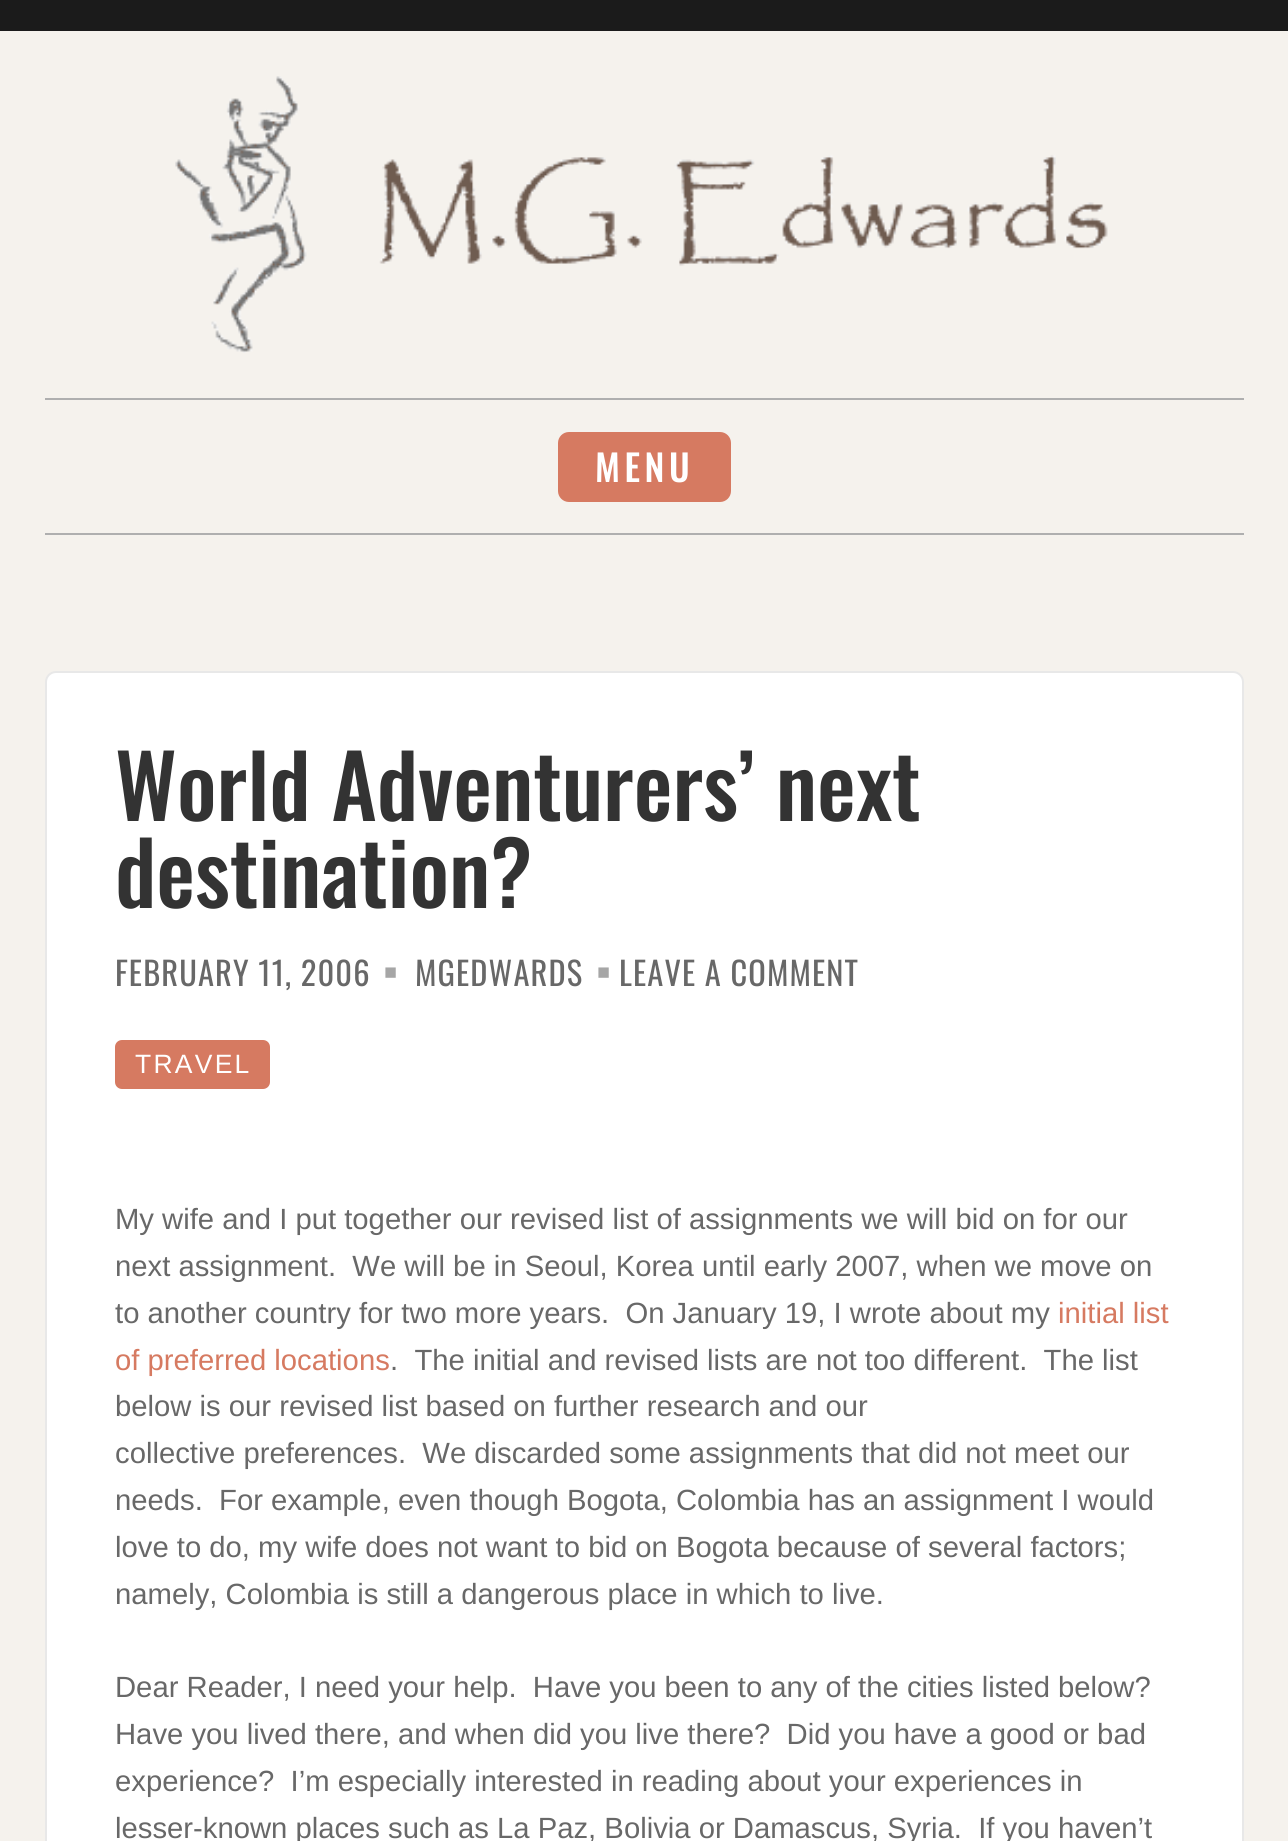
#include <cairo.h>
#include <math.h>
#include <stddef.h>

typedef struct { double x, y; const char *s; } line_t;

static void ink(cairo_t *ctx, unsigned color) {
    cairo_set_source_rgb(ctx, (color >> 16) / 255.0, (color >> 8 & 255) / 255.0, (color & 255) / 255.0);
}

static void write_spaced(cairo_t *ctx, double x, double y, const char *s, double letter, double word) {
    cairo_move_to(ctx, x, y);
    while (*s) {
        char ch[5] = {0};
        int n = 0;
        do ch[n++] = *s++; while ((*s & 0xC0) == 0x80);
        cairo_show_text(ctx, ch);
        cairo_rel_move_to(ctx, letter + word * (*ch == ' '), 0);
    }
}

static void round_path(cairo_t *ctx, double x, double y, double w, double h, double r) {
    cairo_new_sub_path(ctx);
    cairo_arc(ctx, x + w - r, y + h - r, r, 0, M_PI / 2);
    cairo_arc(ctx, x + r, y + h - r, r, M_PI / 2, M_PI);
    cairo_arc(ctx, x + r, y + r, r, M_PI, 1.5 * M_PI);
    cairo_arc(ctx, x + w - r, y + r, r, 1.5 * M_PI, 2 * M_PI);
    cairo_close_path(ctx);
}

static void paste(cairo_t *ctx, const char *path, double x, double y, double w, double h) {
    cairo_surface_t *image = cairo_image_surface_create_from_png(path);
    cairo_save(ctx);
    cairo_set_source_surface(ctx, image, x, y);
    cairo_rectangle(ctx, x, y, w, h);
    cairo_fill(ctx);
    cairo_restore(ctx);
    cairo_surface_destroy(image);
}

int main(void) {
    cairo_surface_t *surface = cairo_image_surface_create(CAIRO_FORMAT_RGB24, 1288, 1841);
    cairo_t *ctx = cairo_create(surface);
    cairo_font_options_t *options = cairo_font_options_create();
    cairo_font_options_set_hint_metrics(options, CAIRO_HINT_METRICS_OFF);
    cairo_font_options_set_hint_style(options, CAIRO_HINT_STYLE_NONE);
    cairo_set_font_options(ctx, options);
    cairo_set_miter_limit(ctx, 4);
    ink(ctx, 0x1B1B1B);
    cairo_paint(ctx);
    ink(ctx, 0xF5F2ED);
    cairo_rectangle(ctx, 0, 31, 1288, 1810);
    cairo_fill(ctx);
    paste(ctx, "media/1.png", 175, 76, 933, 277);
    ink(ctx, 0xAFAFAF);
    cairo_rectangle(ctx, 45, 398, 1199, 2);
    cairo_fill(ctx);
    cairo_rectangle(ctx, 45, 533, 1199, 2);
    cairo_fill(ctx);
    ink(ctx, 0xD67A61);
    round_path(ctx, 559, 433, 171, 68, 10);
    cairo_fill_preserve(ctx);
    cairo_stroke(ctx);
    cairo_select_font_face(ctx, "Oswald Medium", CAIRO_FONT_SLANT_NORMAL, CAIRO_FONT_WEIGHT_NORMAL);
    cairo_set_font_size(ctx, 36.5);
    ink(ctx, 0xFFFFFF);
    write_spaced(ctx, 595, 482, "MENU", 4.5, 0);
    round_path(ctx, 46, 672, 1197, 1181, 10);
    cairo_fill_preserve(ctx);
    ink(ctx, 0xE8E8E8);
    cairo_stroke(ctx);
    cairo_set_font_size(ctx, 87);
    ink(ctx, 0x333333);
    cairo_move_to(ctx, 115, 821);
    cairo_show_text(ctx, "World Adventurers’ next");
    cairo_move_to(ctx, 115, 908);
    cairo_show_text(ctx, "destination?");
    cairo_select_font_face(ctx, "Oswald", CAIRO_FONT_SLANT_NORMAL, CAIRO_FONT_WEIGHT_NORMAL);
    cairo_set_font_size(ctx, 32.5);
    ink(ctx, 0x686868);
    write_spaced(ctx, 115, 986, "FEBRUARY 11, 2006", 1.1, 0);
    cairo_select_font_face(ctx, "Oswald", CAIRO_FONT_SLANT_NORMAL, CAIRO_FONT_WEIGHT_BOLD);
    cairo_set_font_size(ctx, 65);
    ink(ctx, 0xA6A6A6);
    write_spaced(ctx, 383, 998, "·", 1.1, 0);
    cairo_select_font_face(ctx, "Oswald", CAIRO_FONT_SLANT_NORMAL, CAIRO_FONT_WEIGHT_NORMAL);
    cairo_set_font_size(ctx, 32.5);
    ink(ctx, 0x686868);
    write_spaced(ctx, 415, 986, "MGEDWARDS", 1.1, 0);
    cairo_select_font_face(ctx, "Oswald", CAIRO_FONT_SLANT_NORMAL, CAIRO_FONT_WEIGHT_BOLD);
    cairo_set_font_size(ctx, 65);
    ink(ctx, 0xA6A6A6);
    write_spaced(ctx, 596, 998, "·", 1.1, 0);
    cairo_select_font_face(ctx, "Oswald", CAIRO_FONT_SLANT_NORMAL, CAIRO_FONT_WEIGHT_NORMAL);
    cairo_set_font_size(ctx, 32.5);
    ink(ctx, 0x686868);
    write_spaced(ctx, 619, 986, "LEAVE A COMMENT", 1.1, 0);
    ink(ctx, 0xD67A61);
    round_path(ctx, 115, 1040, 155, 49, 7);
    cairo_fill(ctx);
    cairo_select_font_face(ctx, "Liberation Sans", CAIRO_FONT_SLANT_NORMAL, CAIRO_FONT_WEIGHT_NORMAL);
    cairo_set_font_size(ctx, 26.5);
    ink(ctx, 0xFFFFFF);
    write_spaced(ctx, 135, 1073, "TRAVEL", 2.25, 0);
    cairo_set_font_size(ctx, 29.25);
    ink(ctx, 0x686868);
    {
        static const line_t items[] = {
            {115, 1229, "My wife and I put together our revised list of assignments we will bid on for our"},
            {115, 1276, "next assignment.  We will be in Seoul, Korea until early 2007, when we move on"},
            {115, 1323, "to another country for two more years.  On January 19, I wrote about my"},
        };
        for (size_t i = 0; i < sizeof items / sizeof *items; i++) {
            cairo_move_to(ctx, items[i].x, items[i].y);
            cairo_show_text(ctx, items[i].s);
        }
    }
    ink(ctx, 0xD67A61);
    cairo_move_to(ctx, 1058, 1323);
    cairo_show_text(ctx, "initial list");
    cairo_move_to(ctx, 115, 1370);
    cairo_show_text(ctx, "of preferred locations");
    ink(ctx, 0x686868);
    {
        static const line_t items[] = {
            {390, 1370, ".  The initial and revised lists are not too different.  The list"},
            {115, 1416, "below is our revised list based on further research and our"},
            {115, 1463, "collective preferences.  We discarded some assignments that did not meet our"},
            {115, 1510, "needs.  For example, even though Bogota, Colombia has an assignment I would"},
            {115, 1557, "love to do, my wife does not want to bid on Bogota because of several factors;"},
            {115, 1604, "namely, Colombia is still a dangerous place in which to live."},
            {115, 1697, "Dear Reader, I need your help.  Have you been to any of the cities listed below?"},
            {115, 1744, "Have you lived there, and when did you live there?  Did you have a good or bad"},
            {115, 1791, "experience?  I’m especially interested in reading about your experiences in"},
            {115, 1838, "lesser-known places such as La Paz, Bolivia or Damascus, Syria.  If you haven’t"},
        };
        for (size_t i = 0; i < sizeof items / sizeof *items; i++) {
            cairo_move_to(ctx, items[i].x, items[i].y);
            cairo_show_text(ctx, items[i].s);
        }
    }
    cairo_surface_write_to_png(surface, "image.png");
    cairo_font_options_destroy(options);
    cairo_destroy(ctx);
    cairo_surface_destroy(surface);
    return 0;
}
